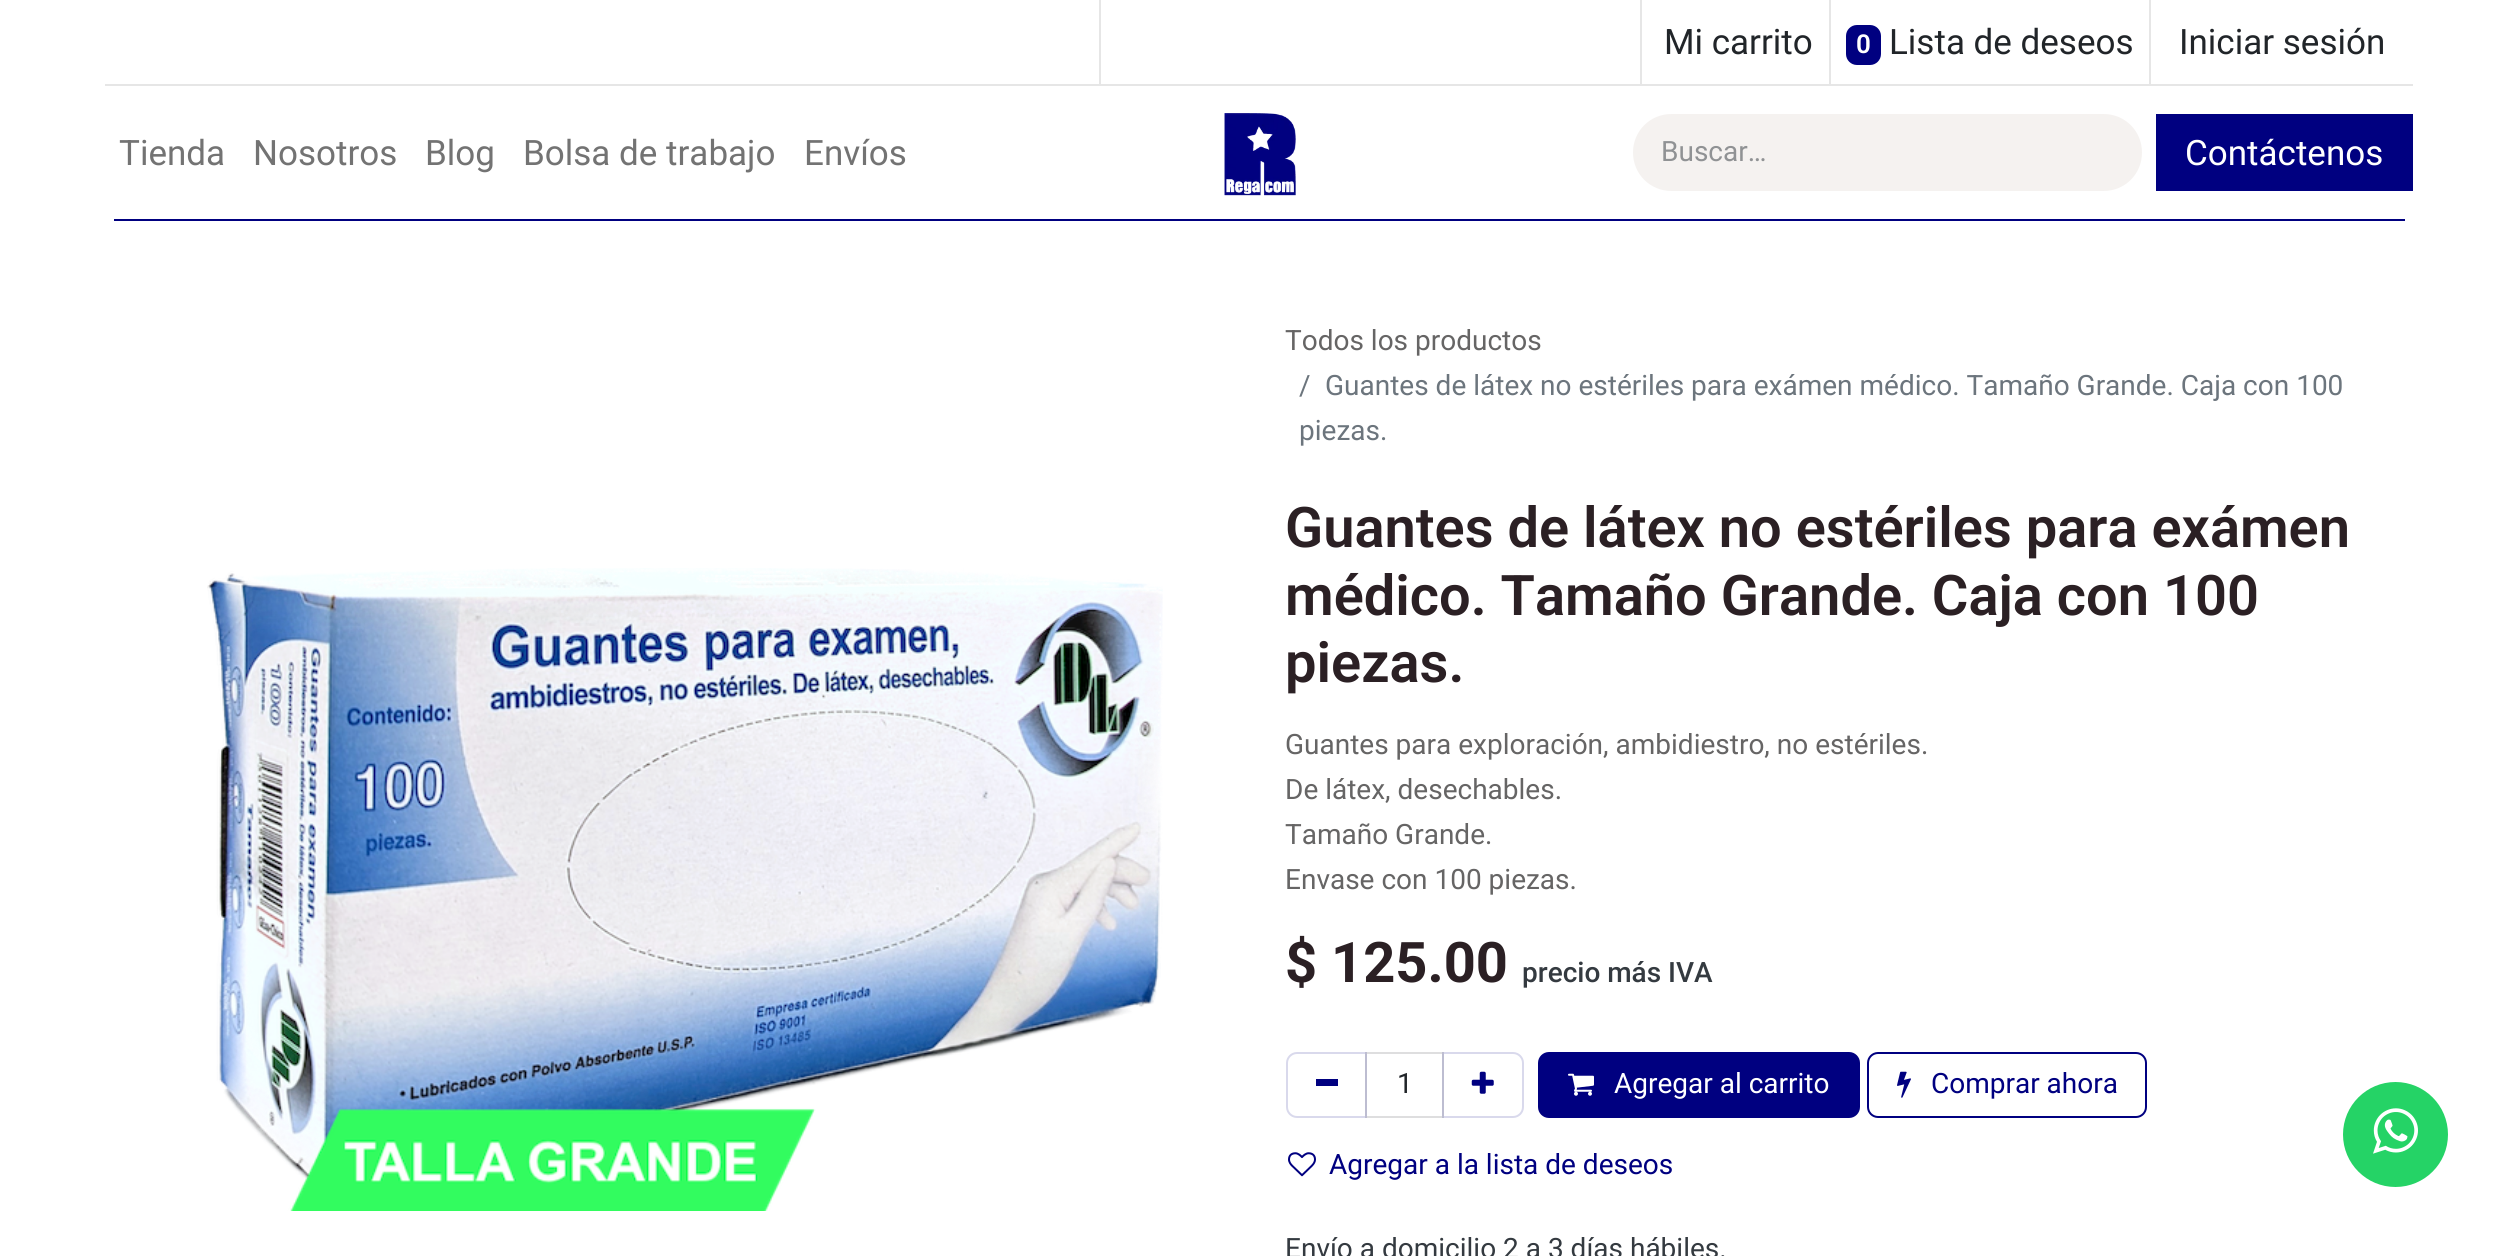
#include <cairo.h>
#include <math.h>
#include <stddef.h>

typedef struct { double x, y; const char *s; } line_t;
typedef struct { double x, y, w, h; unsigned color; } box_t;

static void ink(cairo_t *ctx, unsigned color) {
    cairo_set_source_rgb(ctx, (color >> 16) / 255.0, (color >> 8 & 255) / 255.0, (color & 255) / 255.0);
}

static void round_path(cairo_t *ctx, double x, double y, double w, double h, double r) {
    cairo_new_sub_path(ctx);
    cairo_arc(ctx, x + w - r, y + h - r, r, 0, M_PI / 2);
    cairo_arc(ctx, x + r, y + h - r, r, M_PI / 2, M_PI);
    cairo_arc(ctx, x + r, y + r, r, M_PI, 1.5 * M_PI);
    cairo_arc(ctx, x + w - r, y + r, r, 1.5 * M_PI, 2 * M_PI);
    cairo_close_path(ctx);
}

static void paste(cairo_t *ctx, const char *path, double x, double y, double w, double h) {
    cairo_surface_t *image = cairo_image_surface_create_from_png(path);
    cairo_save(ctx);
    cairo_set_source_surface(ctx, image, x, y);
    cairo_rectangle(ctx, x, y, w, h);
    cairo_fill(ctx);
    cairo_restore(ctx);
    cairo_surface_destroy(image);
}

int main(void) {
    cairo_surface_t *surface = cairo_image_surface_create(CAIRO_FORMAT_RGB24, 2518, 1256);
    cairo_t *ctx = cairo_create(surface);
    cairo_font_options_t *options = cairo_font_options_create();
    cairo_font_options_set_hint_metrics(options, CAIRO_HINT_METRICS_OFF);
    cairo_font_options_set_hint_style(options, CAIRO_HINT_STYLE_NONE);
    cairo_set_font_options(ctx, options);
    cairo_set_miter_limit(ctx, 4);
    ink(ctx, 0xFFFFFF);
    cairo_paint(ctx);
    {
        static const box_t items[] = {
            {114, 219, 2291, 2, 0x000080},
            {105, 84, 2308, 2, 0xE6E6E6},
            {1099, 0, 2, 84, 0xE6E6E6},
            {1640, 0, 2, 84, 0xE6E6E6},
        };
        for (size_t i = 0; i < sizeof items / sizeof *items; i++) {
            ink(ctx, items[i].color);
            cairo_rectangle(ctx, items[i].x, items[i].y, items[i].w, items[i].h);
            cairo_fill(ctx);
        }
    }
    cairo_select_font_face(ctx, "Roboto", CAIRO_FONT_SLANT_NORMAL, CAIRO_FONT_WEIGHT_NORMAL);
    cairo_set_font_size(ctx, 35);
    ink(ctx, 0x212529);
    cairo_move_to(ctx, 1664, 54);
    cairo_show_text(ctx, "Mi carrito");
    ink(ctx, 0xE6E6E6);
    cairo_rectangle(ctx, 1829, 0, 2, 84);
    cairo_fill(ctx);
    ink(ctx, 0x000080);
    round_path(ctx, 1846, 25, 35, 40, 11);
    cairo_fill(ctx);
    cairo_select_font_face(ctx, "Roboto SemiBold", CAIRO_FONT_SLANT_NORMAL, CAIRO_FONT_WEIGHT_NORMAL);
    cairo_set_font_size(ctx, 26);
    ink(ctx, 0xFFFFFF);
    cairo_move_to(ctx, 1856, 53);
    cairo_show_text(ctx, "0");
    cairo_select_font_face(ctx, "Roboto", CAIRO_FONT_SLANT_NORMAL, CAIRO_FONT_WEIGHT_NORMAL);
    cairo_set_font_size(ctx, 35);
    ink(ctx, 0x212529);
    cairo_move_to(ctx, 1889, 54);
    cairo_show_text(ctx, "Lista de deseos");
    ink(ctx, 0xE6E6E6);
    cairo_rectangle(ctx, 2149, 0, 2, 84);
    cairo_fill(ctx);
    ink(ctx, 0x212529);
    cairo_move_to(ctx, 2179, 54);
    cairo_show_text(ctx, "Iniciar sesión");
    ink(ctx, 0x737373);
    {
        static const line_t items[] = {
            {119, 165, "Tienda"},
            {253, 165, "Nosotros"},
            {425, 165, "Blog"},
            {523, 165, "Bolsa de trabajo"},
            {804, 165, "Envíos"},
        };
        for (size_t i = 0; i < sizeof items / sizeof *items; i++) {
            cairo_move_to(ctx, items[i].x, items[i].y);
            cairo_show_text(ctx, items[i].s);
        }
    }
    paste(ctx, "media/1.png", 1224, 113, 72, 83);
    ink(ctx, 0xF5F2F0);
    cairo_new_path(ctx);
    cairo_move_to(ctx, 1671.5, 114);
    cairo_line_to(ctx, 2056, 114);
    cairo_line_to(ctx, 2056, 191);
    cairo_line_to(ctx, 1671.5, 191);
    cairo_curve_to(ctx, 1650, 191, 1633, 174, 1633, 152.5);
    cairo_curve_to(ctx, 1633, 131, 1650, 114, 1671.5, 114);
    cairo_close_path(ctx);
    cairo_fill(ctx);
    cairo_set_font_size(ctx, 28);
    ink(ctx, 0x909294);
    cairo_move_to(ctx, 1661, 161);
    cairo_show_text(ctx, "Buscar…");
    ink(ctx, 0xF5F2F0);
    cairo_new_path(ctx);
    cairo_move_to(ctx, 2055, 114);
    cairo_line_to(ctx, 2103.5, 114);
    cairo_curve_to(ctx, 2125, 114, 2142, 131, 2142, 152.5);
    cairo_curve_to(ctx, 2142, 174, 2125, 191, 2103.5, 191);
    cairo_line_to(ctx, 2055, 191);
    cairo_close_path(ctx);
    cairo_fill(ctx);
    ink(ctx, 0x000080);
    cairo_rectangle(ctx, 2156, 114, 257, 77);
    cairo_fill(ctx);
    cairo_set_font_size(ctx, 35);
    ink(ctx, 0xFFFFFF);
    cairo_move_to(ctx, 2185, 165);
    cairo_show_text(ctx, "Contáctenos");
    cairo_set_font_size(ctx, 28);
    ink(ctx, 0x666565);
    cairo_move_to(ctx, 1285, 350);
    cairo_show_text(ctx, "Todos los productos");
    ink(ctx, 0x6C757D);
    {
        static const line_t items[] = {
            {1299, 395, "/"},
            {1325, 395, "Guantes de látex no estériles para exámen médico. Tamaño Grande. Caja con 100"},
            {1299, 440, "piezas."},
        };
        for (size_t i = 0; i < sizeof items / sizeof *items; i++) {
            cairo_move_to(ctx, items[i].x, items[i].y);
            cairo_show_text(ctx, items[i].s);
        }
    }
    paste(ctx, "media/2.png", 207, 568, 956, 643);
    cairo_select_font_face(ctx, "Roboto SemiBold", CAIRO_FONT_SLANT_NORMAL, CAIRO_FONT_WEIGHT_NORMAL);
    cairo_set_font_size(ctx, 56);
    ink(ctx, 0x2B2024);
    {
        static const line_t items[] = {
            {1285, 547, "Guantes de látex no estériles para exámen"},
            {1285, 615, "médico. Tamaño Grande. Caja con 100"},
            {1285, 682, "piezas."},
        };
        for (size_t i = 0; i < sizeof items / sizeof *items; i++) {
            cairo_move_to(ctx, items[i].x, items[i].y);
            cairo_show_text(ctx, items[i].s);
        }
    }
    cairo_select_font_face(ctx, "Roboto", CAIRO_FONT_SLANT_NORMAL, CAIRO_FONT_WEIGHT_NORMAL);
    cairo_set_font_size(ctx, 28);
    ink(ctx, 0x666565);
    {
        static const line_t items[] = {
            {1285, 754, "Guantes para exploración, ambidiestro, no estériles."},
            {1285, 799, "De látex, desechables."},
            {1285, 844, "Tamaño Grande."},
            {1285, 889, "Envase con 100 piezas."},
        };
        for (size_t i = 0; i < sizeof items / sizeof *items; i++) {
            cairo_move_to(ctx, items[i].x, items[i].y);
            cairo_show_text(ctx, items[i].s);
        }
    }
    cairo_select_font_face(ctx, "Roboto", CAIRO_FONT_SLANT_NORMAL, CAIRO_FONT_WEIGHT_BOLD);
    cairo_set_font_size(ctx, 56);
    ink(ctx, 0x2B2024);
    cairo_move_to(ctx, 1285, 982);
    cairo_show_text(ctx, "$ 125.00");
    cairo_select_font_face(ctx, "Roboto Medium", CAIRO_FONT_SLANT_NORMAL, CAIRO_FONT_WEIGHT_NORMAL);
    cairo_set_font_size(ctx, 28);
    ink(ctx, 0x343A40);
    cairo_move_to(ctx, 1522, 982);
    cairo_show_text(ctx, "precio más IVA");
    cairo_rectangle(ctx, 1366, 1053, 77, 64);
    ink(ctx, 0xDEDEDF);
    cairo_stroke(ctx);
    cairo_new_path(ctx);
    cairo_move_to(ctx, 1297, 1053);
    cairo_line_to(ctx, 1366, 1053);
    cairo_line_to(ctx, 1366, 1117);
    cairo_line_to(ctx, 1297, 1117);
    cairo_curve_to(ctx, 1291.5, 1117, 1287, 1112.5, 1287, 1107);
    cairo_line_to(ctx, 1287, 1063);
    cairo_curve_to(ctx, 1287, 1057.5, 1291.5, 1053, 1297, 1053);
    cairo_close_path(ctx);
    cairo_set_source_rgba(ctx, 0, 0, 0.502, 0.15);
    cairo_stroke(ctx);
    ink(ctx, 0x000080);
    cairo_rectangle(ctx, 1316, 1079, 22, 7);
    cairo_fill(ctx);
    cairo_select_font_face(ctx, "Roboto", CAIRO_FONT_SLANT_NORMAL, CAIRO_FONT_WEIGHT_NORMAL);
    ink(ctx, 0x212529);
    cairo_move_to(ctx, 1397, 1093);
    cairo_show_text(ctx, "1");
    cairo_new_path(ctx);
    cairo_move_to(ctx, 1443, 1053);
    cairo_line_to(ctx, 1513, 1053);
    cairo_curve_to(ctx, 1518.5, 1053, 1523, 1057.5, 1523, 1063);
    cairo_line_to(ctx, 1523, 1107);
    cairo_curve_to(ctx, 1523, 1112.5, 1518.5, 1117, 1513, 1117);
    cairo_line_to(ctx, 1443, 1117);
    cairo_close_path(ctx);
    cairo_set_source_rgba(ctx, 0, 0, 0.502, 0.15);
    cairo_stroke(ctx);
    paste(ctx, "media/3.png", 1471, 1071, 23, 23);
    ink(ctx, 0x000080);
    round_path(ctx, 1539, 1053, 320, 64, 10);
    cairo_fill_preserve(ctx);
    cairo_stroke(ctx);
    paste(ctx, "media/4.png", 1568, 1073, 26, 23);
    ink(ctx, 0xFFFFFF);
    cairo_move_to(ctx, 1614, 1093);
    cairo_show_text(ctx, "Agregar al carrito");
    round_path(ctx, 1868, 1053, 278, 64, 10);
    ink(ctx, 0x000080);
    cairo_stroke(ctx);
    paste(ctx, "media/5.png", 1897, 1071, 14, 27);
    cairo_move_to(ctx, 1931, 1093);
    cairo_show_text(ctx, "Comprar ahora");
    paste(ctx, "media/6.png", 1288, 1152, 28, 25);
    cairo_move_to(ctx, 1329, 1174);
    cairo_show_text(ctx, "Agregar a la lista de deseos");
    ink(ctx, 0x343A40);
    cairo_move_to(ctx, 1285, 1258);
    cairo_show_text(ctx, "Envío a domicilio 2 a 3 días hábiles.");
    ink(ctx, 0x25D366);
    cairo_new_path(ctx);
    cairo_arc(ctx, 2395.5, 1134.5, 52.5, 0, 2 * M_PI);
    cairo_fill(ctx);
    paste(ctx, "media/7.png", 2373, 1108, 45, 46);
    cairo_surface_write_to_png(surface, "image.png");
    cairo_font_options_destroy(options);
    cairo_destroy(ctx);
    cairo_surface_destroy(surface);
    return 0;
}
